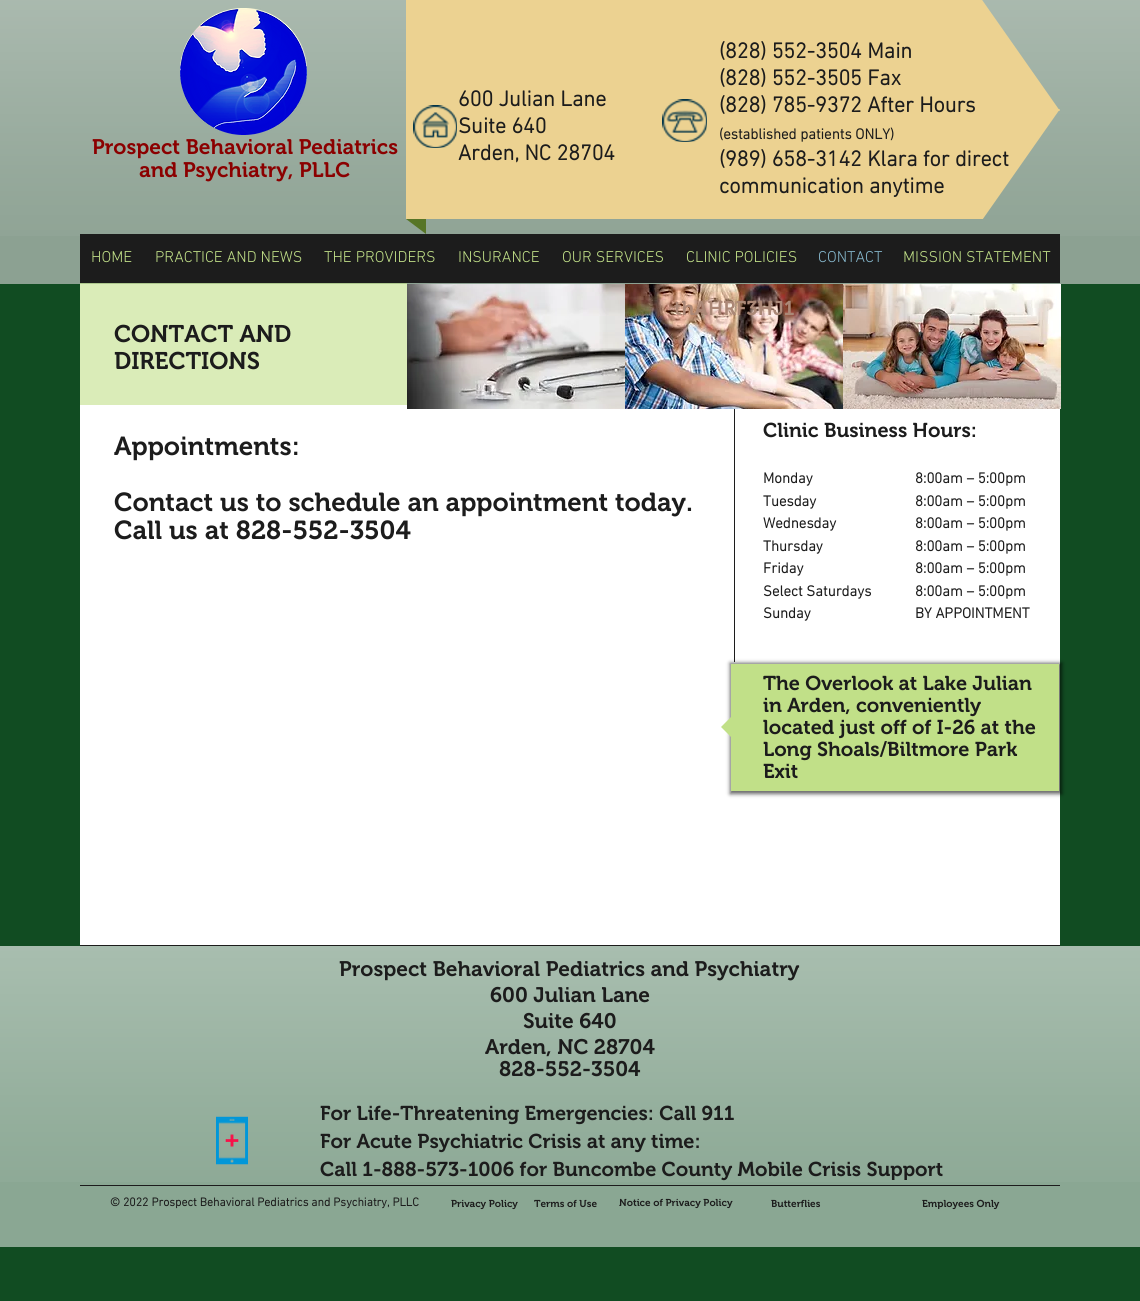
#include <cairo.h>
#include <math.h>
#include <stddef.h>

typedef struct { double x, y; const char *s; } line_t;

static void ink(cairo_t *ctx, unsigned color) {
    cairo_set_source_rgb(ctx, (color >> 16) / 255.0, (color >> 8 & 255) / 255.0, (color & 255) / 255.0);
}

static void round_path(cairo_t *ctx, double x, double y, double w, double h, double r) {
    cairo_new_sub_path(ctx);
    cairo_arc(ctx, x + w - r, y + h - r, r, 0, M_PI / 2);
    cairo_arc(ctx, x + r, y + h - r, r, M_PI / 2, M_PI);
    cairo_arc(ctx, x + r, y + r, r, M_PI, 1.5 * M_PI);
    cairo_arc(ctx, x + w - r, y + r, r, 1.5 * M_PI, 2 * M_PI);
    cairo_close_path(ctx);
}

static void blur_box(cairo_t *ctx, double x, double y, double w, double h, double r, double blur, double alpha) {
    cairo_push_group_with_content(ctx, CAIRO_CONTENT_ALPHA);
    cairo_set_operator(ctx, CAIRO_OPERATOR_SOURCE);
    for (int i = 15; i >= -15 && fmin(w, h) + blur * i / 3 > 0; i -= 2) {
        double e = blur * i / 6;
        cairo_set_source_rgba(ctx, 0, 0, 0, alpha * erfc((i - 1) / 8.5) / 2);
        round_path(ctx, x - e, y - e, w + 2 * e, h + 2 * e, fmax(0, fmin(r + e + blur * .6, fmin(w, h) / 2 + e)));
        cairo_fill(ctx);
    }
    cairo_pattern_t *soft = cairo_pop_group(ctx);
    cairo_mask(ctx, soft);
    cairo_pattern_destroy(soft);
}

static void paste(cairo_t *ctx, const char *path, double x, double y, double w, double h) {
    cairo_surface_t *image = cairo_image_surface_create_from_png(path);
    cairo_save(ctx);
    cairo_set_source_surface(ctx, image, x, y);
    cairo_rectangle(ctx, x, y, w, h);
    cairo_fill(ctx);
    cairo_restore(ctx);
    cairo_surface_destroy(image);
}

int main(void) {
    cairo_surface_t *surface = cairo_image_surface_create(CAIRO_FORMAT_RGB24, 1140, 1301);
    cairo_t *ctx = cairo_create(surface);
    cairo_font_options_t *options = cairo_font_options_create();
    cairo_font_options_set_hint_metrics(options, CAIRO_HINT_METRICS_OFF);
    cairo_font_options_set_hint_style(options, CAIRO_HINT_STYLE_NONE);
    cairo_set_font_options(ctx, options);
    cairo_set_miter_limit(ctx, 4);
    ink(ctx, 0x114C22);
    cairo_paint(ctx);
    ink(ctx, 0x8CA192);
    cairo_rectangle(ctx, 0, 0, 1140, 284);
    cairo_fill(ctx);
    ink(ctx, 0xACC78C);
    cairo_rectangle(ctx, 80, 283, 327, 1);
    cairo_fill(ctx);
    paste(ctx, "media/1.png", 0, 0, 1140, 236);
    paste(ctx, "media/2.png", 180, 8, 127, 127);
    cairo_save(ctx);
    cairo_rectangle(ctx, 406, 0, 654, 219);
    cairo_clip(ctx);
    ink(ctx, 0xECD291);
    cairo_new_path(ctx);
    cairo_move_to(ctx, 56, 109);
    cairo_line_to(ctx, 1060, 109);
    cairo_line_to(ctx, 710, 608);
    cairo_line_to(ctx, 56, 608);
    cairo_close_path(ctx);
    cairo_fill(ctx);
    cairo_new_path(ctx);
    cairo_move_to(ctx, 1060, 111);
    cairo_line_to(ctx, 56, 111);
    cairo_line_to(ctx, 56, -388);
    cairo_line_to(ctx, 710, -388);
    cairo_close_path(ctx);
    cairo_fill(ctx);
    cairo_restore(ctx);
    paste(ctx, "media/3.png", 413, 105, 44, 43);
    cairo_select_font_face(ctx, "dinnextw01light", CAIRO_FONT_SLANT_NORMAL, CAIRO_FONT_WEIGHT_BOLD);
    cairo_set_font_size(ctx, 22);
    ink(ctx, 0x1C1C1C);
    {
        static const line_t items[] = {
            {458, 106, "600 Julian Lane"},
            {458, 133, "Suite 640"},
            {458, 160, "Arden, NC 28704"},
        };
        for (size_t i = 0; i < sizeof items / sizeof *items; i++) {
            cairo_move_to(ctx, items[i].x, items[i].y);
            cairo_show_text(ctx, items[i].s);
        }
    }
    paste(ctx, "media/4.png", 662, 99, 45, 43);
    {
        static const line_t items[] = {
            {719, 58, "(828) 552-3504 Main"},
            {719, 85, "(828) 552-3505 Fax"},
            {719, 112, "(828) 785-9372 After Hours"},
        };
        for (size_t i = 0; i < sizeof items / sizeof *items; i++) {
            cairo_move_to(ctx, items[i].x, items[i].y);
            cairo_show_text(ctx, items[i].s);
        }
    }
    cairo_set_font_size(ctx, 15);
    cairo_move_to(ctx, 719, 139);
    cairo_show_text(ctx, "(established patients ONLY)");
    cairo_set_font_size(ctx, 22);
    cairo_move_to(ctx, 719, 166);
    cairo_show_text(ctx, "(989) 658-3142 Klara for direct");
    cairo_move_to(ctx, 719, 193);
    cairo_show_text(ctx, "communication anytime");
    ink(ctx, 0x577526);
    cairo_new_path(ctx);
    cairo_move_to(ctx, 426, 219);
    cairo_line_to(ctx, 426, 234);
    cairo_line_to(ctx, 406, 219);
    cairo_close_path(ctx);
    cairo_fill(ctx);
    cairo_select_font_face(ctx, "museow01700 SemiBold", CAIRO_FONT_SLANT_NORMAL, CAIRO_FONT_WEIGHT_NORMAL);
    cairo_set_font_size(ctx, 21);
    ink(ctx, 0x8B0000);
    cairo_move_to(ctx, 92, 154);
    cairo_show_text(ctx, "Prospect Behavioral Pediatrics");
    cairo_move_to(ctx, 139, 177);
    cairo_show_text(ctx, "and Psychiatry, PLLC");
    ink(ctx, 0x1C1C1C);
    cairo_rectangle(ctx, 80, 234, 980, 49);
    cairo_fill(ctx);
    cairo_select_font_face(ctx, "dinnextw01light Light", CAIRO_FONT_SLANT_NORMAL, CAIRO_FONT_WEIGHT_NORMAL);
    cairo_set_font_size(ctx, 16);
    ink(ctx, 0xC1E088);
    {
        static const line_t items[] = {
            {91, 262, "HOME"},
            {155, 262, "PRACTICE AND NEWS"},
            {324, 262, "THE PROVIDERS"},
            {458, 262, "INSURANCE"},
            {562, 262, "OUR SERVICES"},
            {686, 262, "CLINIC POLICIES"},
        };
        for (size_t i = 0; i < sizeof items / sizeof *items; i++) {
            cairo_move_to(ctx, items[i].x, items[i].y);
            cairo_show_text(ctx, items[i].s);
        }
    }
    ink(ctx, 0x86B7CC);
    cairo_move_to(ctx, 818, 262);
    cairo_show_text(ctx, "CONTACT");
    ink(ctx, 0xC1E088);
    cairo_move_to(ctx, 903, 262);
    cairo_show_text(ctx, "MISSION STATEMENT");
    ink(ctx, 0xFFFFFF);
    cairo_rectangle(ctx, 80, 405, 980, 540);
    cairo_fill(ctx);
    ink(ctx, 0xDAECB8);
    cairo_rectangle(ctx, 80, 284, 327, 121);
    cairo_fill(ctx);
    paste(ctx, "media/5.png", 407, 284, 218, 125);
    paste(ctx, "media/6.png", 625, 284, 218, 125);
    cairo_select_font_face(ctx, "museow01700 SemiBold", CAIRO_FONT_SLANT_NORMAL, CAIRO_FONT_WEIGHT_NORMAL);
    cairo_set_font_size(ctx, 20);
    ink(ctx, 0xAB8877);
    cairo_move_to(ctx, 674, 315);
    cairo_show_text(ctx, "thAHRF3HJ1");
    paste(ctx, "media/7.png", 843, 284, 218, 125);
    cairo_set_font_size(ctx, 24);
    ink(ctx, 0x1C1C1C);
    cairo_move_to(ctx, 114, 342);
    cairo_show_text(ctx, "CONTACT AND");
    cairo_move_to(ctx, 114, 369);
    cairo_show_text(ctx, "DIRECTIONS");
    ink(ctx, 0x000000);
    blur_box(ctx, 730, 663, 332, 131, 0, 2, 0.6);
    ink(ctx, 0x1C1C1C);
    cairo_rectangle(ctx, 734, 409, 1, 253);
    cairo_fill(ctx);
    cairo_set_font_size(ctx, 20);
    cairo_move_to(ctx, 763, 437);
    cairo_show_text(ctx, "Clinic Business Hours:");
    cairo_set_font_size(ctx, 26);
    {
        static const line_t items[] = {
            {114, 455, "Appointments:"},
            {114, 511, "Contact us to schedule an appointment today."},
            {114, 539, "Call us at 828-552-3504"},
        };
        for (size_t i = 0; i < sizeof items / sizeof *items; i++) {
            cairo_move_to(ctx, items[i].x, items[i].y);
            cairo_show_text(ctx, items[i].s);
        }
    }
    cairo_select_font_face(ctx, "dinnextw01light", CAIRO_FONT_SLANT_NORMAL, CAIRO_FONT_WEIGHT_BOLD);
    cairo_set_font_size(ctx, 15);
    {
        static const line_t items[] = {
            {763, 483, "Monday"},
            {763, 506, "Tuesday"},
            {763, 528, "Wednesday"},
            {763, 551, "Thursday"},
            {763, 573, "Friday"},
            {763, 596, "Select Saturdays"},
            {763, 618, "Sunday"},
            {915, 483, "8:00am – 5:00pm"},
            {915, 506, "8:00am – 5:00pm"},
            {915, 528, "8:00am – 5:00pm"},
            {915, 551, "8:00am – 5:00pm"},
            {915, 573, "8:00am – 5:00pm"},
            {915, 596, "8:00am – 5:00pm"},
            {915, 618, "BY APPOINTMENT"},
        };
        for (size_t i = 0; i < sizeof items / sizeof *items; i++) {
            cairo_move_to(ctx, items[i].x, items[i].y);
            cairo_show_text(ctx, items[i].s);
        }
    }
    ink(ctx, 0xC1E088);
    cairo_rectangle(ctx, 731, 664, 328, 127);
    cairo_fill(ctx);
    cairo_new_path(ctx);
    cairo_move_to(ctx, 731, 717);
    cairo_line_to(ctx, 731, 737);
    cairo_line_to(ctx, 721, 727);
    cairo_close_path(ctx);
    cairo_fill(ctx);
    cairo_select_font_face(ctx, "museow01700 SemiBold", CAIRO_FONT_SLANT_NORMAL, CAIRO_FONT_WEIGHT_NORMAL);
    cairo_set_font_size(ctx, 20);
    ink(ctx, 0x1C1C1C);
    {
        static const line_t items[] = {
            {763, 690, "The Overlook at Lake Julian"},
            {763, 712, "in Arden, conveniently"},
            {763, 734, "located just off of I-26 at the"},
            {763, 756, "Long Shoals/Biltmore Park"},
            {763, 778, "Exit"},
        };
        for (size_t i = 0; i < sizeof items / sizeof *items; i++) {
            cairo_move_to(ctx, items[i].x, items[i].y);
            cairo_show_text(ctx, items[i].s);
        }
    }
    ink(ctx, 0x8AA793);
    cairo_rectangle(ctx, 0, 946, 1140, 301);
    cairo_fill(ctx);
    paste(ctx, "media/8.png", 0, 946, 1140, 236);
    ink(ctx, 0x1C1C1C);
    cairo_rectangle(ctx, 80, 945, 980, 1);
    cairo_fill(ctx);
    cairo_set_font_size(ctx, 21);
    {
        static const line_t items[] = {
            {339, 976, "Prospect Behavioral Pediatrics and Psychiatry"},
            {490, 1002, "600 Julian Lane"},
            {523, 1028, "Suite 640"},
            {485, 1054, "Arden, NC 28704"},
            {499, 1076, "828-552-3504"},
        };
        for (size_t i = 0; i < sizeof items / sizeof *items; i++) {
            cairo_move_to(ctx, items[i].x, items[i].y);
            cairo_show_text(ctx, items[i].s);
        }
    }
    paste(ctx, "media/9.png", 216, 1116, 32, 49);
    cairo_set_font_size(ctx, 20);
    {
        static const line_t items[] = {
            {320, 1120, "For Life-Threatening Emergencies: Call 911"},
            {320, 1148, "For Acute Psychiatric Crisis at any time:"},
            {320, 1176, "Call 1-888-573-1006 for Buncombe County Mobile Crisis Support"},
        };
        for (size_t i = 0; i < sizeof items / sizeof *items; i++) {
            cairo_move_to(ctx, items[i].x, items[i].y);
            cairo_show_text(ctx, items[i].s);
        }
    }
    cairo_rectangle(ctx, 80, 1185, 980, 1);
    cairo_fill(ctx);
    cairo_select_font_face(ctx, "dinnextw01light", CAIRO_FONT_SLANT_NORMAL, CAIRO_FONT_WEIGHT_BOLD);
    cairo_set_font_size(ctx, 12);
    cairo_move_to(ctx, 110, 1206);
    cairo_show_text(ctx, "© 2022 Prospect Behavioral Pediatrics and Psychiatry, PLLC");
    cairo_select_font_face(ctx, "museow01700 SemiBold", CAIRO_FONT_SLANT_NORMAL, CAIRO_FONT_WEIGHT_NORMAL);
    cairo_set_font_size(ctx, 10);
    {
        static const line_t items[] = {
            {451, 1207, "Privacy Policy"},
            {534, 1207, "Terms of Use"},
            {619, 1206, "Notice of Privacy Policy"},
            {771, 1207, "Butterflies"},
            {922, 1207, "Employees Only"},
        };
        for (size_t i = 0; i < sizeof items / sizeof *items; i++) {
            cairo_move_to(ctx, items[i].x, items[i].y);
            cairo_show_text(ctx, items[i].s);
        }
    }
    cairo_surface_write_to_png(surface, "image.png");
    cairo_font_options_destroy(options);
    cairo_destroy(ctx);
    cairo_surface_destroy(surface);
    return 0;
}
